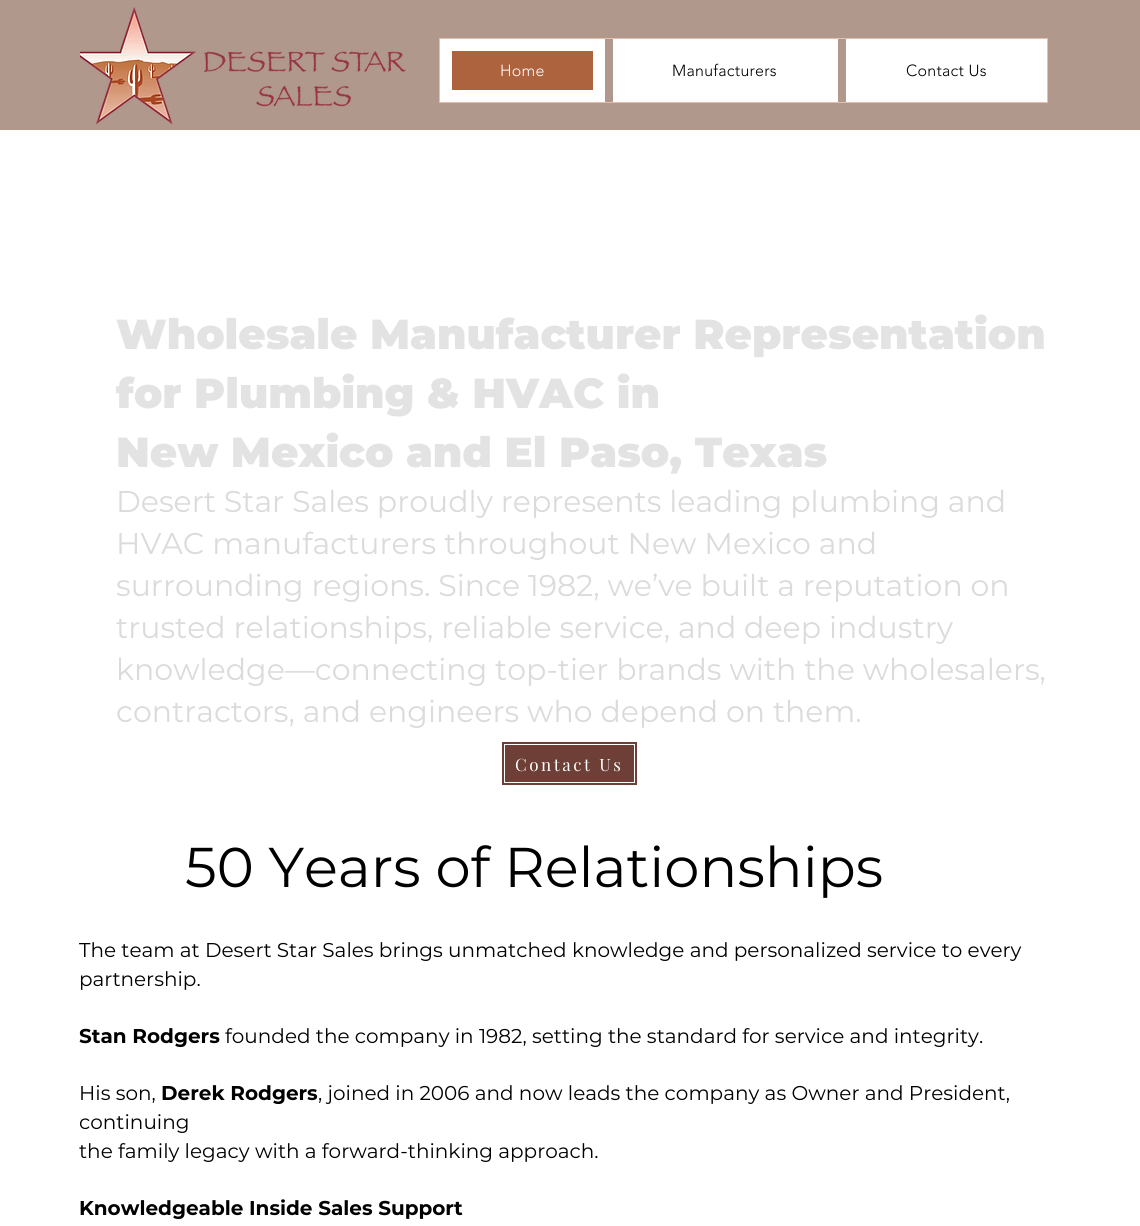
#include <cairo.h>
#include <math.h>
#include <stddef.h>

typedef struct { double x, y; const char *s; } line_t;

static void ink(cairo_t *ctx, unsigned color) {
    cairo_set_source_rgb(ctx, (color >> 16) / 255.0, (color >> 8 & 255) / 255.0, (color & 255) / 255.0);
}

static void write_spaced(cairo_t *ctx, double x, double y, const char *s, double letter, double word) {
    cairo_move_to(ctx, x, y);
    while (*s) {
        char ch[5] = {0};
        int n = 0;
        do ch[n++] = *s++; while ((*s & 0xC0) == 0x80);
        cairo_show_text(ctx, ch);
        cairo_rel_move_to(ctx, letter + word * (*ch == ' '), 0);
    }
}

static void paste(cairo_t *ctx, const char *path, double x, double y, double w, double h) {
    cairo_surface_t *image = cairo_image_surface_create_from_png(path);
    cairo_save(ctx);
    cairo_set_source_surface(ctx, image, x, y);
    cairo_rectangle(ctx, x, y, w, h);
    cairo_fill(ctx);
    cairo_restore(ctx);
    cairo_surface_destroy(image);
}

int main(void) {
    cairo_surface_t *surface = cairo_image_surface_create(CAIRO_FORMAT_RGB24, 1140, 1226);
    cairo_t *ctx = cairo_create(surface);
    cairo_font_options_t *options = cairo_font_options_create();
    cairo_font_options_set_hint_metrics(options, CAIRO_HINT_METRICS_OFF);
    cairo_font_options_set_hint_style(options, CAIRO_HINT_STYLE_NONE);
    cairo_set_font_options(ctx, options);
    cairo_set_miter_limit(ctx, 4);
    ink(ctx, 0xFFFFFF);
    cairo_paint(ctx);
    ink(ctx, 0xB0988C);
    cairo_rectangle(ctx, 0, 0, 1140, 130);
    cairo_fill(ctx);
    paste(ctx, "media/1.png", 80, 7, 326, 118);
    cairo_rectangle(ctx, 439.5, 38.5, 608, 64);
    ink(ctx, 0xE4BFAD);
    cairo_set_line_width(ctx, 1);
    cairo_stroke(ctx);
    ink(ctx, 0xAE633F);
    cairo_rectangle(ctx, 446, 45, 153, 51);
    cairo_fill_preserve(ctx);
    ink(ctx, 0xFFFFFF);
    cairo_set_line_width(ctx, 12);
    cairo_stroke(ctx);
    cairo_select_font_face(ctx, "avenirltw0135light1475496 Light", CAIRO_FONT_SLANT_NORMAL, CAIRO_FONT_WEIGHT_NORMAL);
    cairo_set_font_size(ctx, 16);
    write_spaced(ctx, 500, 76, "Home", 0.25, 0);
    cairo_rectangle(ctx, 613, 39, 225, 63);
    cairo_fill(ctx);
    ink(ctx, 0x000000);
    write_spaced(ctx, 672, 76, "Manufacturers", 0.25, 0);
    ink(ctx, 0xFFFFFF);
    cairo_rectangle(ctx, 846, 39, 201, 63);
    cairo_fill(ctx);
    ink(ctx, 0x000000);
    write_spaced(ctx, 906, 76, "Contact Us", 0.25, 0);
    cairo_select_font_face(ctx, "Montserrat Thin", CAIRO_FONT_SLANT_NORMAL, CAIRO_FONT_WEIGHT_NORMAL);
    cairo_set_font_size(ctx, 42);
    ink(ctx, 0xE3E3E3);
    {
        static const line_t items[] = {
            {116, 349, "Wholesale Manufacturer Representation"},
            {116, 408, "for Plumbing & HVAC in"},
            {116, 467, "New Mexico and El Paso, Texas"},
        };
        for (size_t i = 0; i < sizeof items / sizeof *items; i++) {
            cairo_move_to(ctx, items[i].x, items[i].y);
            cairo_show_text(ctx, items[i].s);
        }
    }
    cairo_select_font_face(ctx, "Montserrat", CAIRO_FONT_SLANT_NORMAL, CAIRO_FONT_WEIGHT_NORMAL);
    cairo_set_font_size(ctx, 30);
    ink(ctx, 0xDBDBDB);
    {
        static const line_t items[] = {
            {116, 512, "Desert Star Sales proudly represents leading plumbing and"},
            {116, 554, "HVAC manufacturers throughout New Mexico and"},
            {116, 596, "surrounding regions. Since 1982, we’ve built a reputation on"},
            {116, 638, "trusted relationships, reliable service, and deep industry"},
            {116, 680, "knowledge—connecting top-tier brands with the wholesalers,"},
            {116, 722, "contractors, and engineers who depend on them."},
        };
        for (size_t i = 0; i < sizeof items / sizeof *items; i++) {
            cairo_move_to(ctx, items[i].x, items[i].y);
            cairo_show_text(ctx, items[i].s);
        }
    }
    ink(ctx, 0x6D3F37);
    cairo_rectangle(ctx, 502, 742, 135, 43);
    cairo_fill(ctx);
    cairo_rectangle(ctx, 504.5, 744.5, 130, 38);
    ink(ctx, 0xFFFFFF);
    cairo_set_line_width(ctx, 1);
    cairo_stroke(ctx);
    cairo_select_font_face(ctx, "Playfair Display", CAIRO_FONT_SLANT_NORMAL, CAIRO_FONT_WEIGHT_NORMAL);
    cairo_set_font_size(ctx, 17);
    write_spaced(ctx, 515, 771, "Contact Us", 2.5, 0);
    cairo_select_font_face(ctx, "Montserrat", CAIRO_FONT_SLANT_NORMAL, CAIRO_FONT_WEIGHT_NORMAL);
    cairo_set_font_size(ctx, 56);
    ink(ctx, 0x000000);
    cairo_move_to(ctx, 185, 887);
    cairo_show_text(ctx, "50 Years of Relationships");
    cairo_set_font_size(ctx, 20);
    cairo_move_to(ctx, 79, 957);
    cairo_show_text(ctx, "The team at Desert Star Sales brings unmatched knowledge and personalized service to every");
    cairo_move_to(ctx, 79, 986);
    cairo_show_text(ctx, "partnership.");
    cairo_select_font_face(ctx, "Montserrat", CAIRO_FONT_SLANT_NORMAL, CAIRO_FONT_WEIGHT_BOLD);
    cairo_move_to(ctx, 79, 1043);
    cairo_show_text(ctx, "Stan Rodgers");
    cairo_select_font_face(ctx, "Montserrat", CAIRO_FONT_SLANT_NORMAL, CAIRO_FONT_WEIGHT_NORMAL);
    cairo_move_to(ctx, 225, 1043);
    cairo_show_text(ctx, "founded the company in 1982, setting the standard for service and integrity.");
    cairo_move_to(ctx, 79, 1100);
    cairo_show_text(ctx, "His son,");
    cairo_select_font_face(ctx, "Montserrat", CAIRO_FONT_SLANT_NORMAL, CAIRO_FONT_WEIGHT_BOLD);
    cairo_move_to(ctx, 161, 1100);
    cairo_show_text(ctx, "Derek Rodgers");
    cairo_select_font_face(ctx, "Montserrat", CAIRO_FONT_SLANT_NORMAL, CAIRO_FONT_WEIGHT_NORMAL);
    {
        static const line_t items[] = {
            {318, 1100, ", joined in 2006 and now leads the company as Owner and President,"},
            {79, 1129, "continuing"},
            {79, 1158, "the family legacy with a forward-thinking approach."},
        };
        for (size_t i = 0; i < sizeof items / sizeof *items; i++) {
            cairo_move_to(ctx, items[i].x, items[i].y);
            cairo_show_text(ctx, items[i].s);
        }
    }
    cairo_select_font_face(ctx, "Montserrat", CAIRO_FONT_SLANT_NORMAL, CAIRO_FONT_WEIGHT_BOLD);
    cairo_move_to(ctx, 79, 1215);
    cairo_show_text(ctx, "Knowledgeable Inside Sales Support");
    cairo_surface_write_to_png(surface, "image.png");
    cairo_font_options_destroy(options);
    cairo_destroy(ctx);
    cairo_surface_destroy(surface);
    return 0;
}
